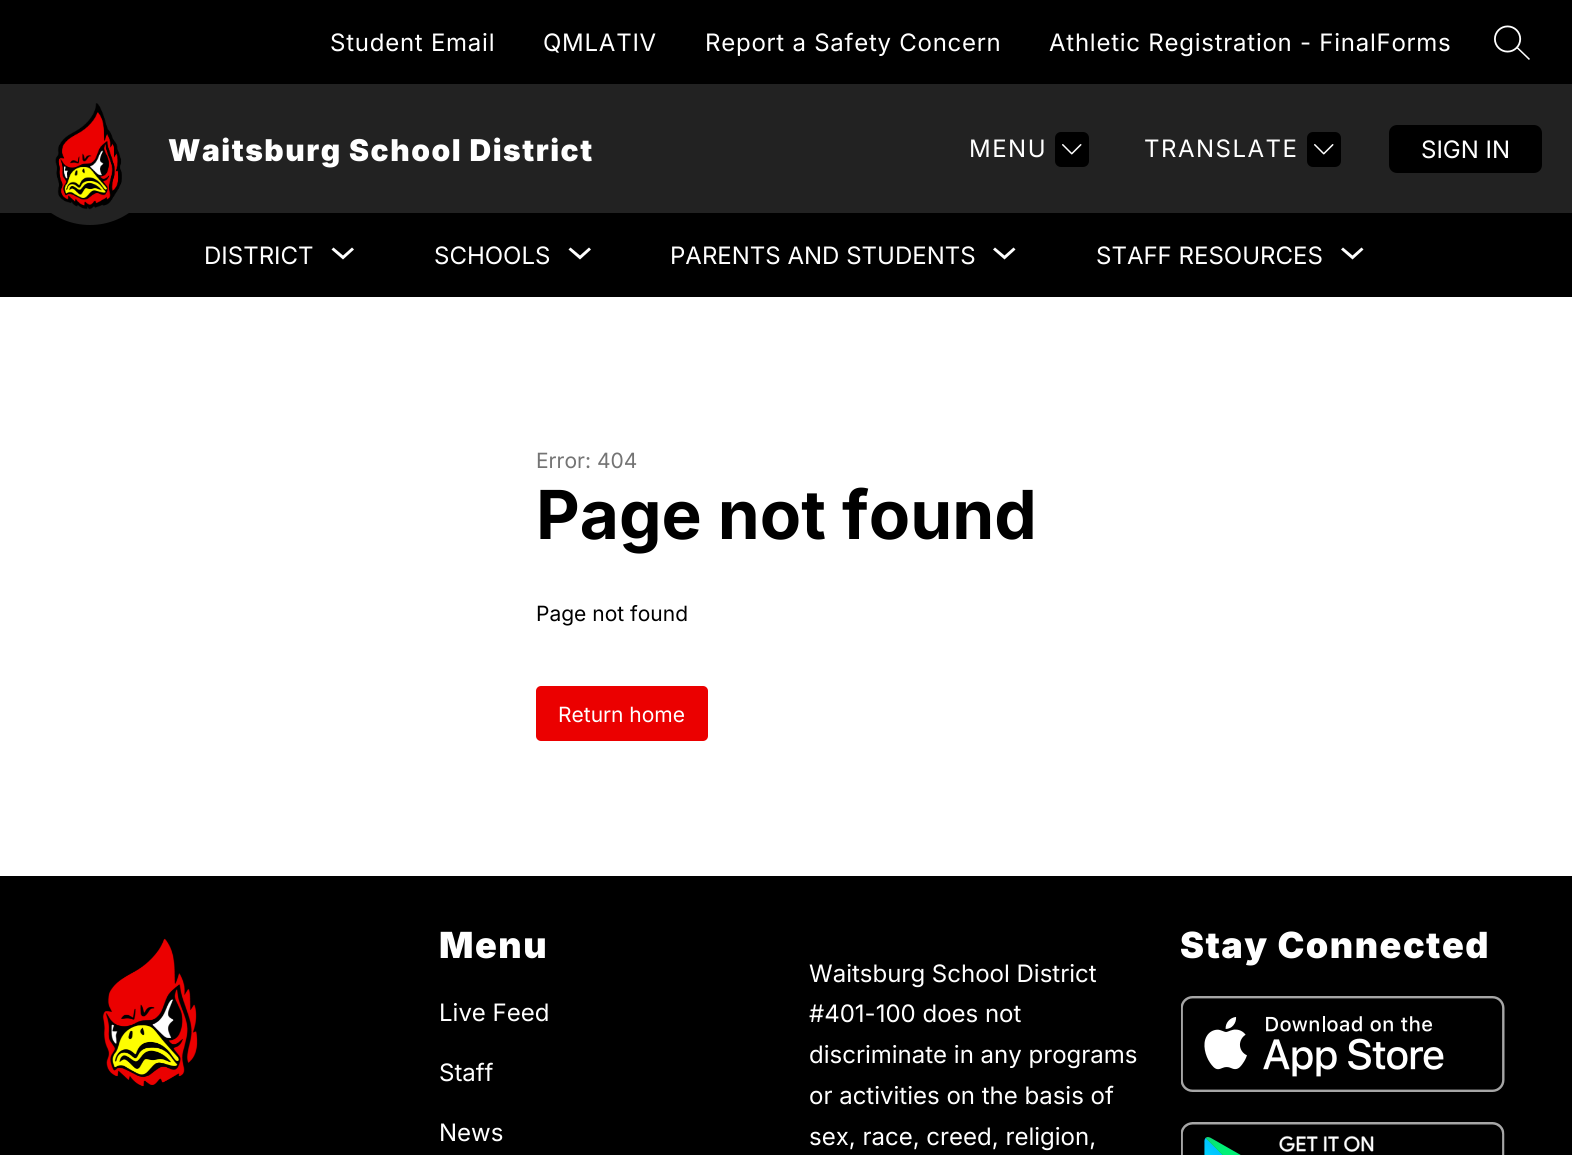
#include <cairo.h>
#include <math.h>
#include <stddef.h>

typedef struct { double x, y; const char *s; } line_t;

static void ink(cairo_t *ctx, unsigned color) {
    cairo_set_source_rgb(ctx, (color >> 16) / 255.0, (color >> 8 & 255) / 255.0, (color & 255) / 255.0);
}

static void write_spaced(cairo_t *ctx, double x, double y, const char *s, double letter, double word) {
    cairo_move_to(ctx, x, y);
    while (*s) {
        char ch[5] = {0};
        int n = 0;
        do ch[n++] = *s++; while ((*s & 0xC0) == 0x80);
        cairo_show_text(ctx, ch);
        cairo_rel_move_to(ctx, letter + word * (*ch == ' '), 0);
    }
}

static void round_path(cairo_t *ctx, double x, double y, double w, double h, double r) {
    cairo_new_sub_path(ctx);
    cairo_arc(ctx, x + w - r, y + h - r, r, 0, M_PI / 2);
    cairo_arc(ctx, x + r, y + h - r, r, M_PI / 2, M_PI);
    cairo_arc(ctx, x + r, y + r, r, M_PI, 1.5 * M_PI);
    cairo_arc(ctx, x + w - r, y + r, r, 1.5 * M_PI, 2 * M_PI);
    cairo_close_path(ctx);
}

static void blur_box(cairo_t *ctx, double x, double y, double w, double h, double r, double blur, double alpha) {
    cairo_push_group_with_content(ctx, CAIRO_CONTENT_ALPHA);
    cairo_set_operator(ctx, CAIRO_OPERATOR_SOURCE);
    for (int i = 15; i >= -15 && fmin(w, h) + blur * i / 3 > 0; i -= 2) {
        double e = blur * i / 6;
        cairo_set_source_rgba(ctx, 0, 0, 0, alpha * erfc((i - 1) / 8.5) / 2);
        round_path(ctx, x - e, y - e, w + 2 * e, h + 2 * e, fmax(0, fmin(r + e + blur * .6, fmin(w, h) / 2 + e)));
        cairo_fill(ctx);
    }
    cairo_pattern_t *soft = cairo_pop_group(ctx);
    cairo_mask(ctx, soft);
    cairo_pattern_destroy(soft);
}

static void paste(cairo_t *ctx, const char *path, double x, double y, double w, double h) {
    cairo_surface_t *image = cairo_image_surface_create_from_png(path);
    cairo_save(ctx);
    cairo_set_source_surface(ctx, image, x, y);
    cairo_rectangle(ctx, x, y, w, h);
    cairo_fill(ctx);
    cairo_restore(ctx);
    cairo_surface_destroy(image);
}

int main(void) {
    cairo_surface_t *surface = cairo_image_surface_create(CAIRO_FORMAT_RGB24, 1572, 1155);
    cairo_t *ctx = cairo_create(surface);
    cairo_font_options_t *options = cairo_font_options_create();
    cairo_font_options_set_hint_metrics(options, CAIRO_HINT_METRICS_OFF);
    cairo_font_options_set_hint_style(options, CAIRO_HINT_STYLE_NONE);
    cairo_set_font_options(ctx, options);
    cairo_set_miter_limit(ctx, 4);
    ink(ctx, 0xFFFFFF);
    cairo_paint(ctx);
    ink(ctx, 0x000000);
    cairo_rectangle(ctx, 0, 213, 1572, 84);
    cairo_fill(ctx);
    ink(ctx, 0x000000);
    blur_box(ctx, 21, 93, 138, 138, 69, 7.5, 0.1);
    ink(ctx, 0x000000);
    cairo_rectangle(ctx, 0, 0, 1572, 84);
    cairo_fill(ctx);
    cairo_select_font_face(ctx, "Inter", CAIRO_FONT_SLANT_NORMAL, CAIRO_FONT_WEIGHT_NORMAL);
    cairo_set_font_size(ctx, 24);
    ink(ctx, 0xFFFFFF);
    {
        static const line_t items[] = {
            {330, 51, "Student Email"},
            {543, 51, "QMLATIV"},
            {705, 51, "Report a Safety Concern"},
            {1049, 51, "Athletic Registration - FinalForms"},
        };
        for (size_t i = 0; i < sizeof items / sizeof *items; i++) {
            write_spaced(ctx, items[i].x, items[i].y, items[i].s, 0.75, 0);
        }
    }
    paste(ctx, "media/1.png", 1494, 25, 36, 35);
    ink(ctx, 0x222222);
    cairo_arc(ctx, 90, 156, 69, 0, 2 * M_PI);
    cairo_fill(ctx);
    cairo_rectangle(ctx, 0, 84, 1572, 129);
    cairo_fill(ctx);
    paste(ctx, "media/2.png", 55, 103, 67, 107);
    cairo_select_font_face(ctx, "Inter Black", CAIRO_FONT_SLANT_NORMAL, CAIRO_FONT_WEIGHT_NORMAL);
    cairo_set_font_size(ctx, 30);
    ink(ctx, 0xFFFFFF);
    write_spaced(ctx, 168, 161, "Waitsburg School District", 1.5, 0);
    cairo_select_font_face(ctx, "Inter", CAIRO_FONT_SLANT_NORMAL, CAIRO_FONT_WEIGHT_NORMAL);
    cairo_set_font_size(ctx, 24);
    write_spaced(ctx, 969, 157, "MENU", 1.5, 0);
    paste(ctx, "media/3.png", 1055, 132, 34, 35);
    write_spaced(ctx, 1144, 157, "TRANSLATE", 1.5, 0);
    paste(ctx, "media/3.png", 1307, 132, 34, 35);
    ink(ctx, 0x000000);
    round_path(ctx, 1390, 126, 151, 46, 7);
    cairo_fill_preserve(ctx);
    cairo_stroke(ctx);
    ink(ctx, 0xFFFFFF);
    cairo_move_to(ctx, 1421, 158);
    cairo_show_text(ctx, "SIGN IN");
    cairo_move_to(ctx, 204, 264);
    cairo_show_text(ctx, "DISTRICT");
    cairo_set_fill_rule(ctx, CAIRO_FILL_RULE_EVEN_ODD);
    cairo_new_path(ctx);
    cairo_move_to(ctx, 352, 247.5);
    cairo_line_to(ctx, 343, 255.5);
    cairo_line_to(ctx, 333.5, 247.5);
    cairo_line_to(ctx, 331.5, 249.5);
    cairo_line_to(ctx, 343, 259.5);
    cairo_line_to(ctx, 354, 249.5);
    cairo_close_path(ctx);
    cairo_fill(ctx);
    cairo_move_to(ctx, 434, 264);
    cairo_show_text(ctx, "SCHOOLS");
    cairo_new_path(ctx);
    cairo_move_to(ctx, 589, 247.5);
    cairo_line_to(ctx, 580, 255.5);
    cairo_line_to(ctx, 570.5, 247.5);
    cairo_line_to(ctx, 568.5, 249.5);
    cairo_line_to(ctx, 580, 259.5);
    cairo_line_to(ctx, 591, 249.5);
    cairo_close_path(ctx);
    cairo_fill(ctx);
    cairo_move_to(ctx, 670, 264);
    cairo_show_text(ctx, "PARENTS AND STUDENTS");
    cairo_new_path(ctx);
    cairo_move_to(ctx, 1013.5, 247.5);
    cairo_line_to(ctx, 1004.5, 255.5);
    cairo_line_to(ctx, 995, 247.5);
    cairo_line_to(ctx, 993, 249.5);
    cairo_line_to(ctx, 1004.5, 259.5);
    cairo_line_to(ctx, 1015.5, 249.5);
    cairo_close_path(ctx);
    cairo_fill(ctx);
    cairo_move_to(ctx, 1096, 264);
    cairo_show_text(ctx, "STAFF RESOURCES");
    cairo_new_path(ctx);
    cairo_move_to(ctx, 1361.5, 247.5);
    cairo_line_to(ctx, 1352.5, 255.5);
    cairo_line_to(ctx, 1343, 247.5);
    cairo_line_to(ctx, 1341, 249.5);
    cairo_line_to(ctx, 1352.5, 259.5);
    cairo_line_to(ctx, 1363.5, 249.5);
    cairo_close_path(ctx);
    cairo_fill(ctx);
    cairo_set_font_size(ctx, 21);
    ink(ctx, 0x747474);
    cairo_move_to(ctx, 536, 468);
    cairo_show_text(ctx, "Error: 404");
    cairo_select_font_face(ctx, "Inter", CAIRO_FONT_SLANT_NORMAL, CAIRO_FONT_WEIGHT_BOLD);
    cairo_set_font_size(ctx, 67.5);
    ink(ctx, 0x000000);
    cairo_move_to(ctx, 536, 539);
    cairo_show_text(ctx, "Page not found");
    cairo_select_font_face(ctx, "Inter", CAIRO_FONT_SLANT_NORMAL, CAIRO_FONT_WEIGHT_NORMAL);
    cairo_set_font_size(ctx, 21);
    cairo_move_to(ctx, 536, 621);
    cairo_show_text(ctx, "Page not found");
    ink(ctx, 0xEB0000);
    round_path(ctx, 536, 686, 172, 55, 5);
    cairo_fill(ctx);
    ink(ctx, 0xFFFFFF);
    cairo_move_to(ctx, 558, 722);
    cairo_show_text(ctx, "Return home");
    ink(ctx, 0x000000);
    cairo_rectangle(ctx, 0, 876, 1572, 279);
    cairo_fill(ctx);
    paste(ctx, "media/4.png", 102, 938, 96, 149);
    cairo_select_font_face(ctx, "Inter Black", CAIRO_FONT_SLANT_NORMAL, CAIRO_FONT_WEIGHT_NORMAL);
    cairo_set_font_size(ctx, 36);
    ink(ctx, 0xFFFFFF);
    write_spaced(ctx, 439, 958, "Menu", 1.5, 0);
    cairo_select_font_face(ctx, "Inter", CAIRO_FONT_SLANT_NORMAL, CAIRO_FONT_WEIGHT_NORMAL);
    cairo_set_font_size(ctx, 24);
    {
        static const line_t items[] = {
            {439, 1021, "Live Feed"},
            {439, 1081, "Staff"},
            {439, 1141, "News"},
            {809, 982, "Waitsburg School District"},
            {809, 1022, "#401-100 does not"},
            {809, 1063, "discriminate in any programs"},
            {809, 1104, "or activities on the basis of"},
            {809, 1145, "sex, race, creed, religion,"},
        };
        for (size_t i = 0; i < sizeof items / sizeof *items; i++) {
            cairo_move_to(ctx, items[i].x, items[i].y);
            cairo_show_text(ctx, items[i].s);
        }
    }
    cairo_select_font_face(ctx, "Inter Black", CAIRO_FONT_SLANT_NORMAL, CAIRO_FONT_WEIGHT_NORMAL);
    cairo_set_font_size(ctx, 36);
    write_spaced(ctx, 1180, 958, "Stay Connected", 1.5, 0);
    paste(ctx, "media/5.png", 1181, 996, 324, 96);
    paste(ctx, "media/6.png", 1181, 1122, 324, 33);
    cairo_surface_write_to_png(surface, "image.png");
    cairo_font_options_destroy(options);
    cairo_destroy(ctx);
    cairo_surface_destroy(surface);
    return 0;
}
